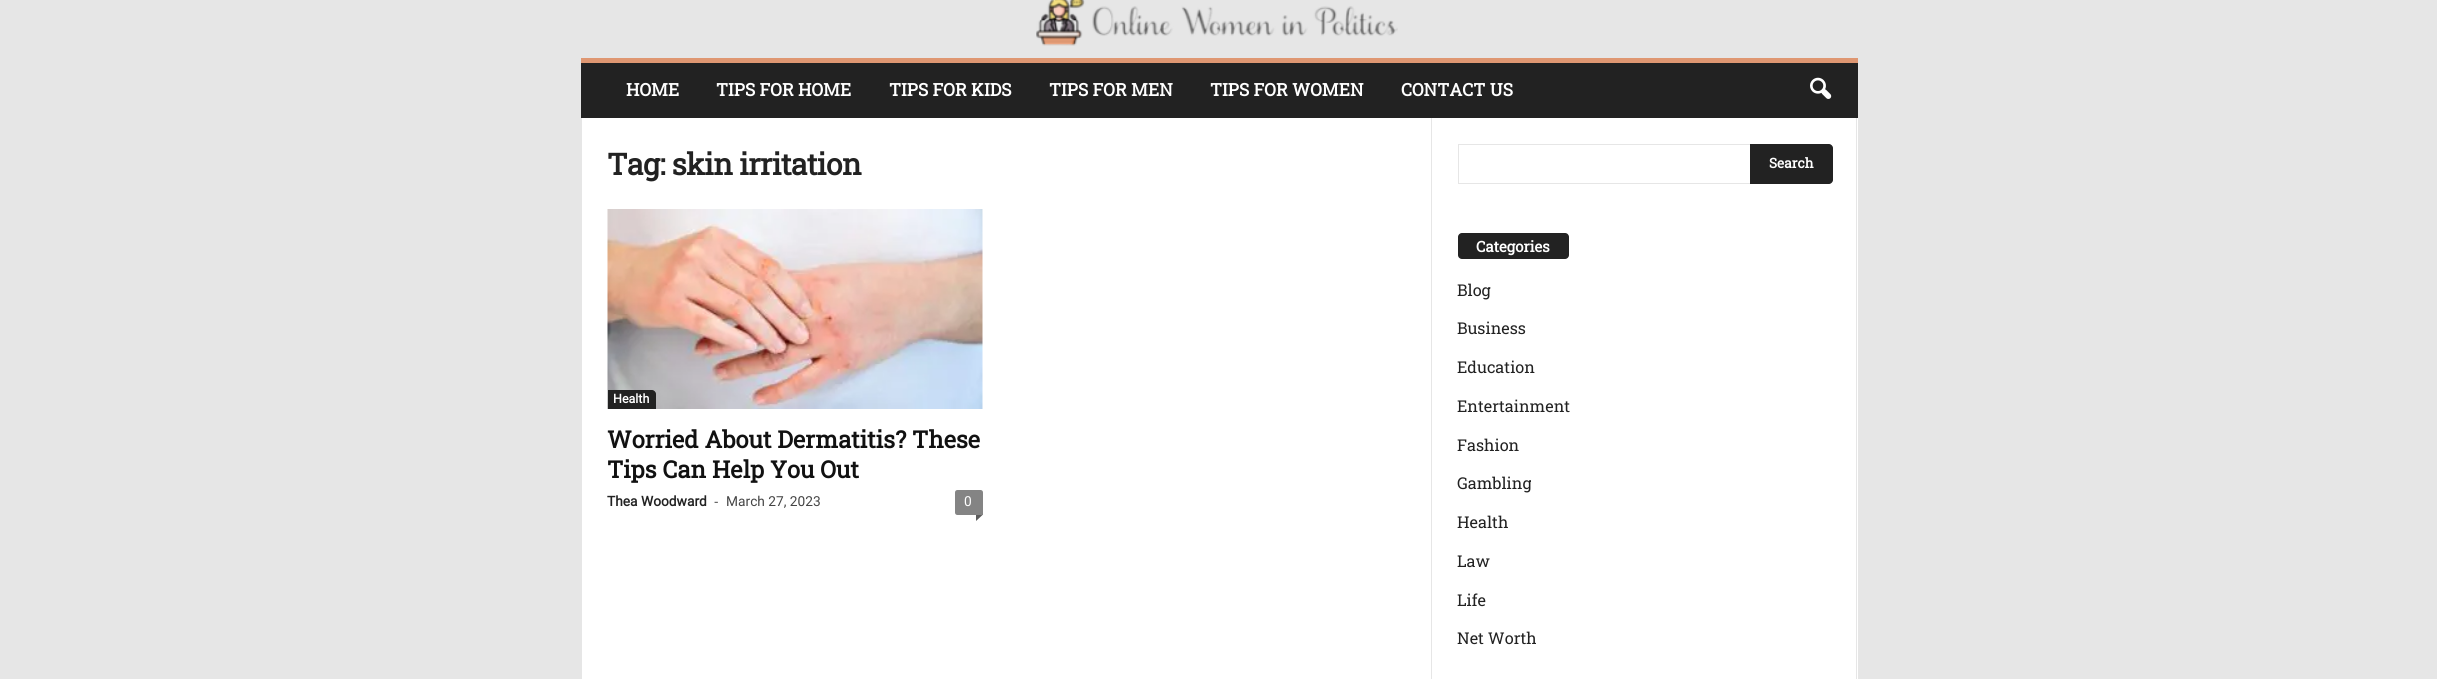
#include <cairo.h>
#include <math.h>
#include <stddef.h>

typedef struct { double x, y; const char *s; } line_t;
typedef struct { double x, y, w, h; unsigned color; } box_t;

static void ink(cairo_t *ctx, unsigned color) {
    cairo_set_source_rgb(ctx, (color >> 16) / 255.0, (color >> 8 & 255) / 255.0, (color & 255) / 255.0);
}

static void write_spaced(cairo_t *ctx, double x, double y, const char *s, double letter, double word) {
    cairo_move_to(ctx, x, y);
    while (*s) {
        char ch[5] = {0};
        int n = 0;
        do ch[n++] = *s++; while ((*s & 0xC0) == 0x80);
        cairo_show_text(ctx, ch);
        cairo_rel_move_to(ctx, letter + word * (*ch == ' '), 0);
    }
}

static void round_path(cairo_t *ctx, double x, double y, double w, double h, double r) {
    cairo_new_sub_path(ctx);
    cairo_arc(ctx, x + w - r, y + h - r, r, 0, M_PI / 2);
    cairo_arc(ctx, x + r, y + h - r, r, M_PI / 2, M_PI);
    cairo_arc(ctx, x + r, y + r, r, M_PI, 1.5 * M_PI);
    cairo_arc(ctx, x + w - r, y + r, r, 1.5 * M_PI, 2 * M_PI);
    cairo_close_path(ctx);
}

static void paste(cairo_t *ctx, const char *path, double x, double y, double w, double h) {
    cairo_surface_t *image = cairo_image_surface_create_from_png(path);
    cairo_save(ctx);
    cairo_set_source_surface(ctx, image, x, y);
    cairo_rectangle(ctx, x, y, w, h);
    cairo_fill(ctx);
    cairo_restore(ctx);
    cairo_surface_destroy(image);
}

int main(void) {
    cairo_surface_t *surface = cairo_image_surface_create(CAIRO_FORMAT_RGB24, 2437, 679);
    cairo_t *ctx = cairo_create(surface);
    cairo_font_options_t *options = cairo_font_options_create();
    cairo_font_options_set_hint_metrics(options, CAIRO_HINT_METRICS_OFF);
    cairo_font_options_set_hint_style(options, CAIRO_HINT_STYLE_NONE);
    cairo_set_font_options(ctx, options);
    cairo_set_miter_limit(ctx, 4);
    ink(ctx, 0xE6E6E6);
    cairo_paint(ctx);
    paste(ctx, "media/1.png", 1036, 0, 362, 46);
    ink(ctx, 0x222222);
    cairo_rectangle(ctx, 581, 63, 1277, 55);
    cairo_fill(ctx);
    ink(ctx, 0xDF9772);
    cairo_rectangle(ctx, 581, 58, 1277, 5);
    cairo_fill(ctx);
    cairo_select_font_face(ctx, "Roboto Slab", CAIRO_FONT_SLANT_NORMAL, CAIRO_FONT_WEIGHT_BOLD);
    cairo_set_font_size(ctx, 17.5);
    ink(ctx, 0xFFFFFF);
    {
        static const line_t items[] = {
            {626, 96, "HOME"},
            {716, 96, "TIPS FOR HOME"},
            {889, 96, "TIPS FOR KIDS"},
            {1049, 96, "TIPS FOR MEN"},
            {1210, 96, "TIPS FOR WOMEN"},
            {1401, 96, "CONTACT US"},
        };
        for (size_t i = 0; i < sizeof items / sizeof *items; i++) {
            cairo_move_to(ctx, items[i].x, items[i].y);
            cairo_show_text(ctx, items[i].s);
        }
    }
    paste(ctx, "media/2.png", 1810, 77, 22, 22);
    cairo_rectangle(ctx, 582, 118, 1276, 561);
    cairo_fill(ctx);
    cairo_set_font_size(ctx, 30);
    ink(ctx, 0x222222);
    write_spaced(ctx, 607, 175, "Tag: skin irritation", -0.6, 0);
    paste(ctx, "media/3.png", 607, 209, 376, 200);
    cairo_new_path(ctx);
    cairo_move_to(ctx, 608, 390);
    cairo_line_to(ctx, 652, 390);
    cairo_curve_to(ctx, 654, 390, 656, 392, 656, 394);
    cairo_line_to(ctx, 656, 409);
    cairo_line_to(ctx, 608, 409);
    cairo_close_path(ctx);
    cairo_fill(ctx);
    cairo_select_font_face(ctx, "Roboto", CAIRO_FONT_SLANT_NORMAL, CAIRO_FONT_WEIGHT_BOLD);
    cairo_set_font_size(ctx, 12.5);
    ink(ctx, 0xFFFFFF);
    cairo_move_to(ctx, 613, 403);
    cairo_show_text(ctx, "Health");
    cairo_select_font_face(ctx, "Roboto Slab", CAIRO_FONT_SLANT_NORMAL, CAIRO_FONT_WEIGHT_BOLD);
    cairo_set_font_size(ctx, 23.75);
    ink(ctx, 0x111111);
    cairo_move_to(ctx, 607, 448);
    cairo_show_text(ctx, "Worried About Dermatitis? These");
    cairo_move_to(ctx, 607, 478);
    cairo_show_text(ctx, "Tips Can Help You Out");
    cairo_select_font_face(ctx, "Roboto", CAIRO_FONT_SLANT_NORMAL, CAIRO_FONT_WEIGHT_BOLD);
    cairo_set_font_size(ctx, 13.75);
    ink(ctx, 0x222222);
    cairo_move_to(ctx, 607, 506);
    cairo_show_text(ctx, "Thea Woodward");
    cairo_select_font_face(ctx, "Open Sans", CAIRO_FONT_SLANT_NORMAL, CAIRO_FONT_WEIGHT_NORMAL);
    ink(ctx, 0x444444);
    cairo_move_to(ctx, 714, 506);
    cairo_show_text(ctx, "-");
    cairo_select_font_face(ctx, "Roboto", CAIRO_FONT_SLANT_NORMAL, CAIRO_FONT_WEIGHT_NORMAL);
    cairo_move_to(ctx, 726, 506);
    cairo_show_text(ctx, "March 27, 2023");
    ink(ctx, 0x848484);
    cairo_new_path(ctx);
    cairo_move_to(ctx, 957.5, 490);
    cairo_line_to(ctx, 980.5, 490);
    cairo_curve_to(ctx, 982, 490, 983, 491, 983, 492.5);
    cairo_line_to(ctx, 983, 515);
    cairo_line_to(ctx, 957.5, 515);
    cairo_curve_to(ctx, 956, 515, 955, 514, 955, 512.5);
    cairo_line_to(ctx, 955, 492.5);
    cairo_curve_to(ctx, 955, 491, 956, 490, 957.5, 490);
    cairo_close_path(ctx);
    cairo_fill(ctx);
    ink(ctx, 0xFFFFFF);
    cairo_move_to(ctx, 964, 506);
    cairo_show_text(ctx, "0");
    ink(ctx, 0x5B5B5B);
    cairo_new_path(ctx);
    cairo_move_to(ctx, 976, 515);
    cairo_line_to(ctx, 982.5, 515);
    cairo_line_to(ctx, 976, 521);
    cairo_close_path(ctx);
    cairo_fill(ctx);
    {
        static const box_t items[] = {
            {1431, 118, 1, 561, 0xE6E6E6},
            {1458, 144, 292, 1, 0xE6E6E6},
            {1458, 183, 292, 1, 0xE6E6E6},
            {1458, 144, 1, 40, 0xE6E6E6},
        };
        for (size_t i = 0; i < sizeof items / sizeof *items; i++) {
            ink(ctx, items[i].color);
            cairo_rectangle(ctx, items[i].x, items[i].y, items[i].w, items[i].h);
            cairo_fill(ctx);
        }
    }
    ink(ctx, 0x222222);
    cairo_new_path(ctx);
    cairo_move_to(ctx, 1750, 144);
    cairo_line_to(ctx, 1829, 144);
    cairo_curve_to(ctx, 1831, 144, 1833, 146, 1833, 148);
    cairo_line_to(ctx, 1833, 180);
    cairo_curve_to(ctx, 1833, 182, 1831, 184, 1829, 184);
    cairo_line_to(ctx, 1750, 184);
    cairo_close_path(ctx);
    cairo_fill(ctx);
    cairo_select_font_face(ctx, "Roboto Slab", CAIRO_FONT_SLANT_NORMAL, CAIRO_FONT_WEIGHT_BOLD);
    ink(ctx, 0xFFFFFF);
    cairo_move_to(ctx, 1769, 168);
    cairo_show_text(ctx, "Search");
    ink(ctx, 0x222222);
    round_path(ctx, 1458, 233, 111, 26, 4);
    cairo_fill(ctx);
    cairo_set_font_size(ctx, 15);
    ink(ctx, 0xFFFFFF);
    cairo_move_to(ctx, 1476, 252);
    cairo_show_text(ctx, "Categories");
    cairo_select_font_face(ctx, "Roboto Slab", CAIRO_FONT_SLANT_NORMAL, CAIRO_FONT_WEIGHT_NORMAL);
    cairo_set_font_size(ctx, 16.25);
    ink(ctx, 0x222222);
    {
        static const line_t items[] = {
            {1457, 296, "Blog"},
            {1457, 334, "Business"},
            {1457, 373, "Education"},
            {1457, 412, "Entertainment"},
            {1457, 451, "Fashion"},
            {1457, 489, "Gambling"},
            {1457, 528, "Health"},
            {1457, 567, "Law"},
            {1457, 606, "Life"},
            {1457, 644, "Net Worth"},
        };
        for (size_t i = 0; i < sizeof items / sizeof *items; i++) {
            cairo_move_to(ctx, items[i].x, items[i].y);
            cairo_show_text(ctx, items[i].s);
        }
    }
    ink(ctx, 0xE6E6E6);
    cairo_rectangle(ctx, 1856, 118, 1, 561);
    cairo_fill(ctx);
    cairo_surface_write_to_png(surface, "image.png");
    cairo_font_options_destroy(options);
    cairo_destroy(ctx);
    cairo_surface_destroy(surface);
    return 0;
}
